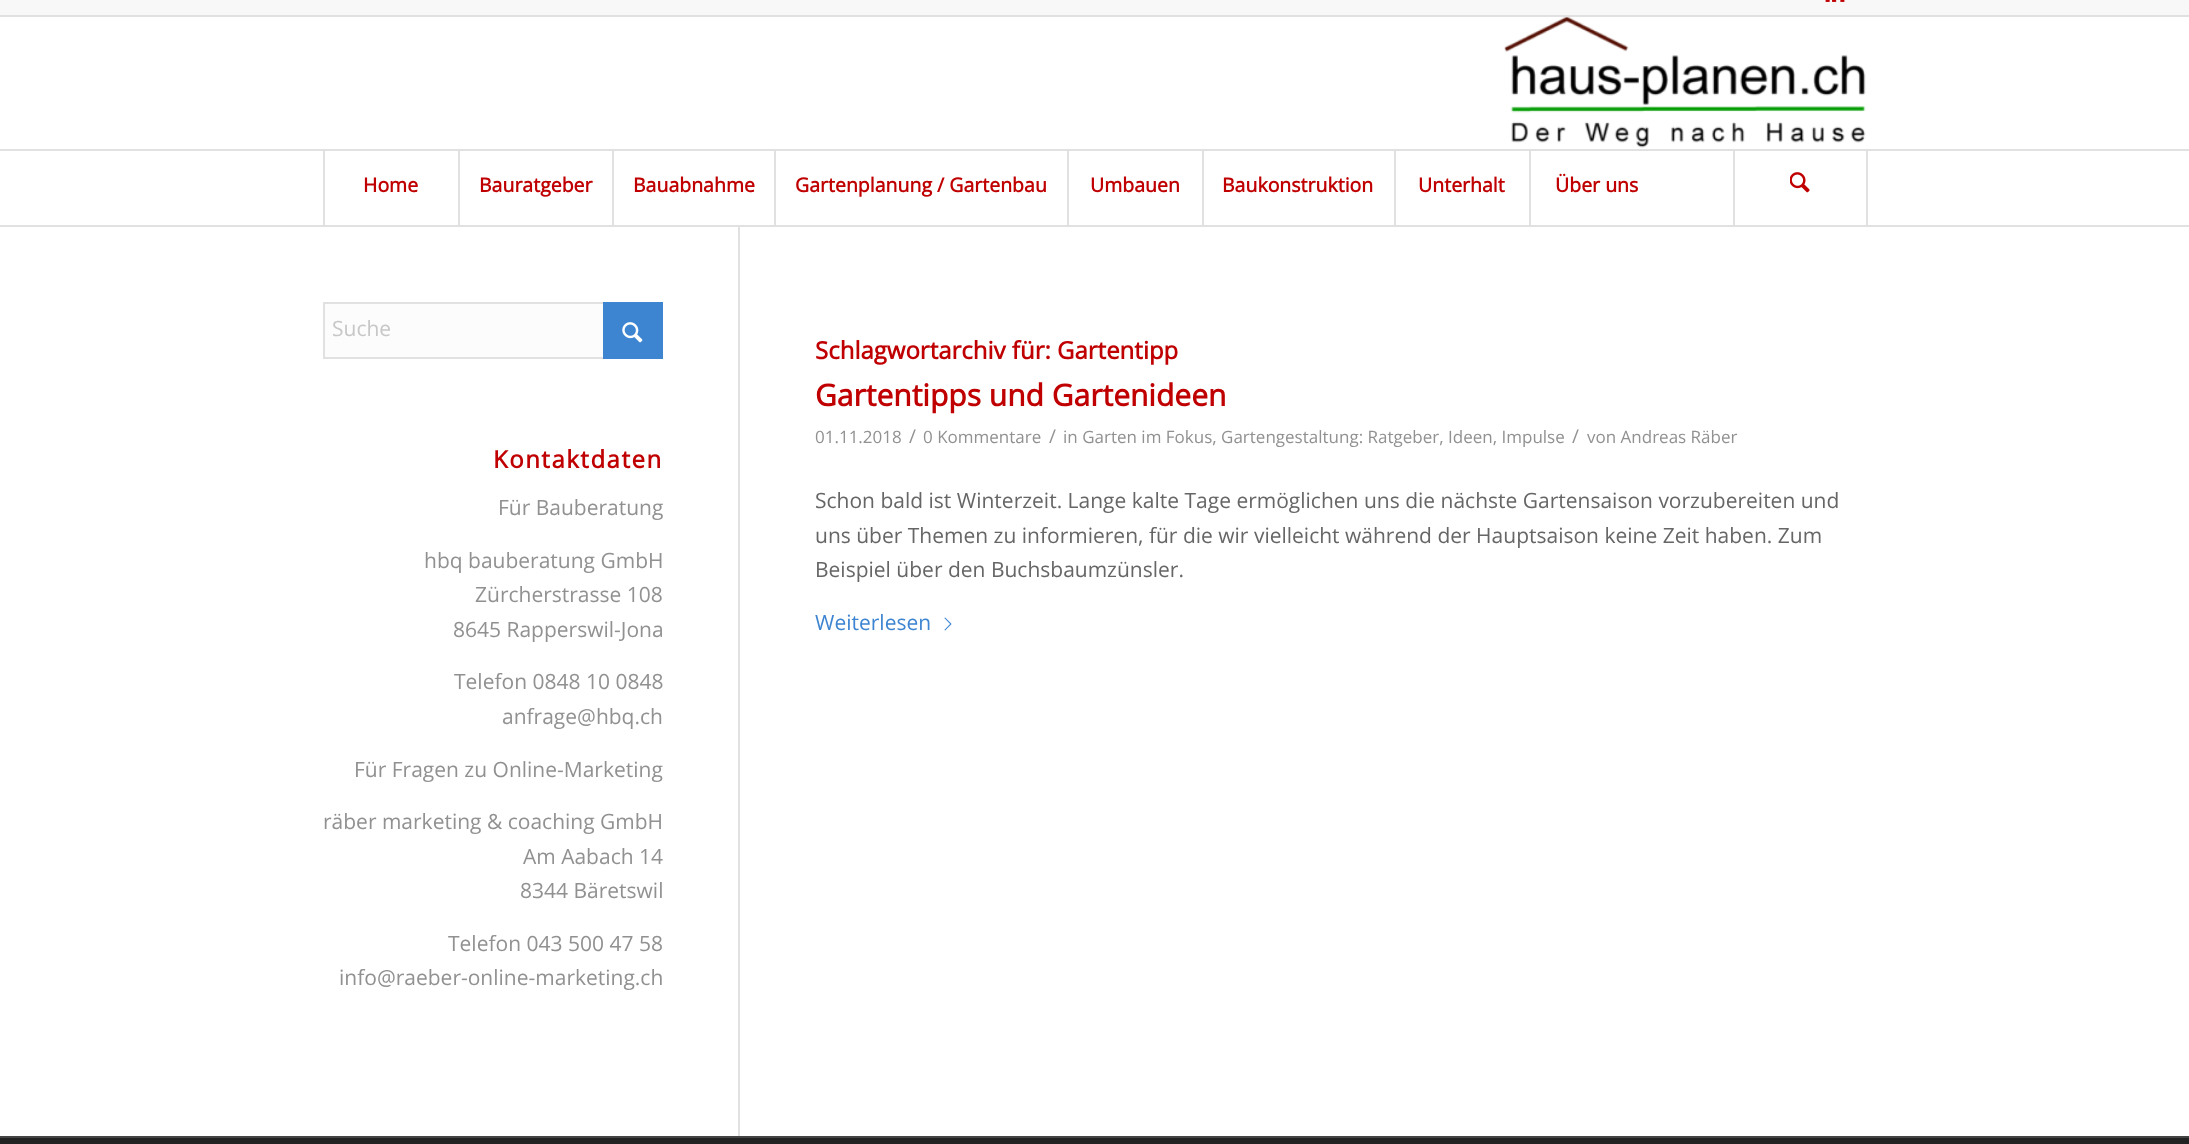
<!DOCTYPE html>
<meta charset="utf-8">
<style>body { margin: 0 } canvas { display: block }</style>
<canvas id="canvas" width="2189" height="1144"></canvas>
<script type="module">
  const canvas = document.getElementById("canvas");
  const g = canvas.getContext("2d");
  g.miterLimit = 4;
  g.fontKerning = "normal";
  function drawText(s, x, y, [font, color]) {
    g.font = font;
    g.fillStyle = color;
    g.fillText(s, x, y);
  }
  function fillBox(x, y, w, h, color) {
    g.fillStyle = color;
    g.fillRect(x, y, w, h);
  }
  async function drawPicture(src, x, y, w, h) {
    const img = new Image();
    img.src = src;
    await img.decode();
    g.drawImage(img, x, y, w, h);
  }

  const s1 = ["bold 19.5px Open Sans", "#C00000"];
  const s2 = ["21px Open Sans", "#C7C7C7"];
  const s3 = ["bold 24px Open Sans", "#C00000"];
  const s4 = ["21px Open Sans", "#919191"];
  const s5 = ["bold 30px Open Sans", "#C00000"];
  const s6 = ["17px Open Sans", "#919191"];
  const s7 = ["19px Open Sans", "#919191"];
  const s8 = ["21px Open Sans", "#666666"];
  const s9 = ["21px Open Sans", "#3E85D1"];

  fillBox(0, 0, 2189, 1144, "#FFFFFF");
  fillBox(0, 0, 2189, 15, "#F8F8F8");
  fillBox(0, 15, 2189, 2, "#E1E1E1");
  await drawPicture("pic1.png", 1825, 0, 20, 2);
  fillBox(0, 225, 2189, 2, "#E1E1E1");
  await drawPicture("pic2.png", 1504, 17, 362, 131);
  fillBox(0, 149, 2189, 2, "#E1E1E1");
  fillBox(323, 150, 2, 75, "#E1E1E1");
  drawText("Home", 363, 192, s1);
  fillBox(458, 150, 2, 75, "#E1E1E1");
  drawText("Bauratgeber", 479, 192, s1);
  fillBox(612, 150, 2, 75, "#E1E1E1");
  drawText("Bauabnahme", 633, 192, s1);
  fillBox(774, 150, 2, 75, "#E1E1E1");
  drawText("Gartenplanung / Gartenbau", 795, 192, s1);
  fillBox(1067, 150, 2, 75, "#E1E1E1");
  drawText("Umbauen", 1090, 192, s1);
  fillBox(1202, 150, 2, 75, "#E1E1E1");
  drawText("Baukonstruktion", 1222, 192, s1);
  fillBox(1394, 150, 2, 75, "#E1E1E1");
  drawText("Unterhalt", 1418, 192, s1);
  fillBox(1529, 150, 2, 75, "#E1E1E1");
  drawText("Über uns", 1555, 192, s1);
  fillBox(1866, 150, 2, 75, "#E1E1E1");
  fillBox(1733, 150, 2, 75, "#E1E1E1");
  await drawPicture("pic3.png", 1790, 172, 20, 21);
  fillBox(738, 227, 2, 909, "#E1E1E1");
  fillBox(325, 304, 278, 53, "#FCFCFC");
  g.strokeStyle = "#E1E1E1";
  g.lineWidth = 2;
  g.strokeRect(324, 303, 338, 55);
  drawText("Suche", 332, 336, s2);
  fillBox(603, 302, 60, 57, "#3E85D1");
  await drawPicture("pic4.png", 622, 322, 21, 21);
  g.letterSpacing = "1.5px";
  drawText("Kontaktdaten", 493, 468, s3);
  g.letterSpacing = "0px";
  drawText("Für Bauberatung", 498, 515, s4);
  drawText("hbq bauberatung GmbH", 424, 568, s4);
  drawText("Zürcherstrasse 108", 475, 602, s4);
  drawText("8645 Rapperswil-Jona", 453, 637, s4);
  drawText("Telefon 0848 10 0848", 454, 689, s4);
  drawText("anfrage@hbq.ch", 502, 724, s4);
  drawText("Für Fragen zu Online-Marketing", 354, 777, s4);
  drawText("räber marketing & coaching GmbH", 323, 829, s4);
  drawText("Am Aabach 14", 523, 864, s4);
  drawText("8344 Bäretswil", 520, 898, s4);
  drawText("Telefon 043 500 47 58", 448, 951, s4);
  drawText("info@raeber-online-marketing.ch", 339, 985, s4);
  drawText("Schlagwortarchiv für: Gartentipp", 815, 359, s3);
  drawText("Gartentipps und Gartenideen", 815, 406, s5);
  drawText("01.11.2018", 815, 443, s6);
  drawText("/", 909, 443, s7);
  drawText("0 Kommentare", 923, 443, s6);
  drawText("/", 1049, 443, s7);
  drawText("in Garten im Fokus, Gartengestaltung: Ratgeber, Ideen, Impulse", 1063, 443, s6);
  drawText("/", 1572, 443, s7);
  drawText("von Andreas Räber", 1587, 443, s6);
  drawText("Schon bald ist Winterzeit. Lange kalte Tage ermöglichen uns die nächste Gartensaison vorzubereiten und", 815, 508, s8);
  drawText("uns über Themen zu informieren, für die wir vielleicht während der Hauptsaison keine Zeit haben. Zum", 815, 543, s8);
  drawText("Beispiel über den Buchsbaumzünsler.", 815, 577, s8);
  drawText("Weiterlesen", 815, 630, s9);
  await drawPicture("pic5.png", 944, 617, 8, 14);
  fillBox(0, 1138, 2189, 6, "#222222");
  fillBox(0, 1136, 2189, 2, "#444444");
</script>
